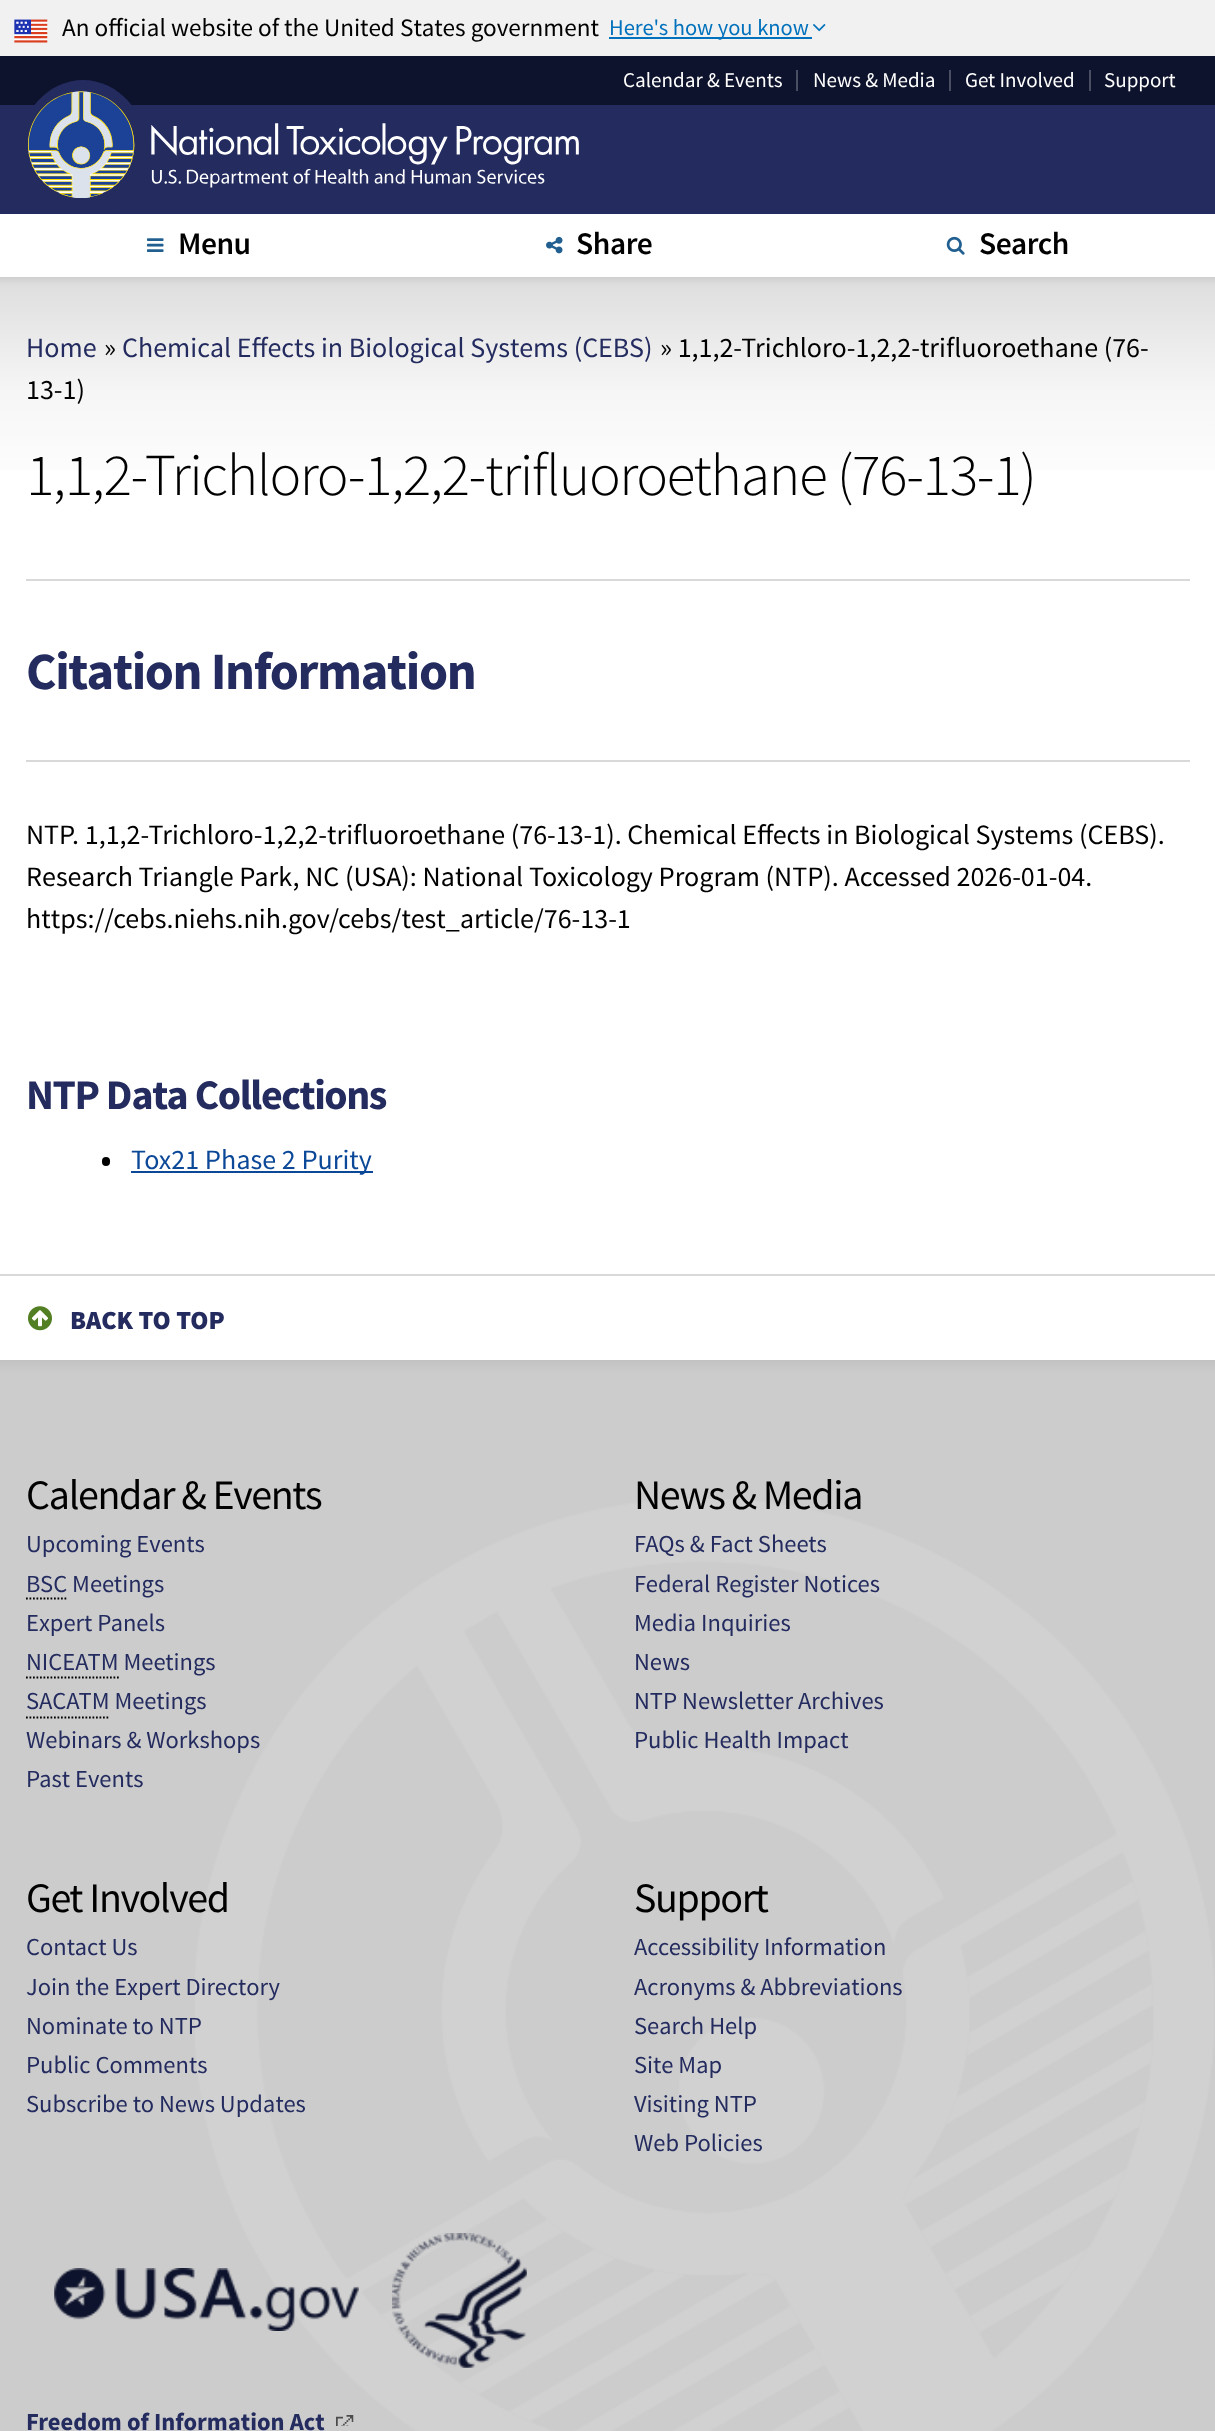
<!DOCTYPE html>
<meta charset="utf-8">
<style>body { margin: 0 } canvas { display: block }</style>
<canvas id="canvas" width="1215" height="2431"></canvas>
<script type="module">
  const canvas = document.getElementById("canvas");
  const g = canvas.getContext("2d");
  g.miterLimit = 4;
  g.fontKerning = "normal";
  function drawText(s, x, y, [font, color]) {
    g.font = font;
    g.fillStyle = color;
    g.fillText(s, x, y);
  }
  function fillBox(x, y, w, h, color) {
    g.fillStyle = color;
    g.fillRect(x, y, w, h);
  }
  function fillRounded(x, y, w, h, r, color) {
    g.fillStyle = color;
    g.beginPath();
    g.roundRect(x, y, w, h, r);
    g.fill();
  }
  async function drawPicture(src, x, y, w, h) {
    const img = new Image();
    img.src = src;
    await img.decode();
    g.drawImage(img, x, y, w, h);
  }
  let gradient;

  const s1 = ["25.2px Source Sans Pro", "#000000"];
  const s2 = ["22.5px Source Sans Pro", "#0071BC"];
  const s3 = ["21px Source Sans Pro", "#FFFFFF"];
  const s4 = ["600 31.5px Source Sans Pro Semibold", "#000000"];
  const s5 = ["28px Source Sans Pro", "#232B5F"];
  const s6 = ["28px Source Sans Pro", "#000000"];
  const s7 = ["300 59.5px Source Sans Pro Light", "#000000"];
  const s8 = ["bold 52.5px Source Sans Pro", "#232B5F"];
  const s9 = ["bold 42px Source Sans Pro", "#232B5F"];
  const s10 = ["28px Source Sans Pro", "#0B4898"];
  const s11 = ["900 26.25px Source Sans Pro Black", "#232B5F"];
  const s12 = ["42px Source Sans Pro", "#000000"];
  const s13 = ["24.5px Source Sans Pro", "#232B5F"];
  const s14 = ["bold 24.5px Source Sans Pro", "#232B5F"];

  fillBox(0, 0, 1215, 2431, "#FFFFFF");
  gradient = g.createLinearGradient(608, 276, 608, 1248);
  gradient.addColorStop(0, "#DDDDDD");
  gradient.addColorStop(0.12, "#F6F6F6");
  gradient.addColorStop(0.23, "#FFFFFF");
  g.fillStyle = gradient;
  g.fillRect(0, 277, 1215, 193);
  g.fillStyle = "rgba(0, 0, 0, 0.08)";
  g.filter = "blur(3.5px)";
  g.beginPath();
  g.rect(-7, -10, 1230, 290);
  g.fill();
  g.filter = "none";
  fillBox(0, 0, 1215, 56, "#F1F1F1");
  await drawPicture("pic1.png", 14, 19, 34, 24);
  drawText("An official website of the United States government", 62, 36, s1);
  fillBox(609, 37, 203, 2, "#0071BC");
  drawText("Here's how you know", 609, 35, s2);
  await drawPicture("pic2.png", 813, 24, 13, 8);
  fillBox(0, 56, 1215, 49, "#0E132D");
  drawText("Calendar & Events", 623, 87, s3);
  fillBox(796, 70, 2, 21, "#4A4E62");
  drawText("News & Media", 813, 87, s3);
  fillBox(949, 70, 2, 21, "#4A4E62");
  drawText("Get Involved", 965, 87, s3);
  fillBox(1089, 70, 2, 21, "#4A4E62");
  drawText("Support", 1104, 87, s3);
  fillBox(0, 105, 1215, 109, "#232B5F");
  g.beginPath();
  g.ellipse(83, 152, 64, 72, 0, 0, Math.PI * 2);
  g.fill();
  await drawPicture("pic3.png", 28, 91, 551, 107);
  fillBox(0, 214, 1215, 63, "#FFFFFF");
  await drawPicture("pic4.png", 147, 238, 17, 14);
  g.letterSpacing = "-0.5px";
  drawText("Menu", 178, 254, s4);
  await drawPicture("pic5.png", 546, 236, 17, 18);
  drawText("Share", 576, 254, s4);
  await drawPicture("pic6.png", 946, 236, 19, 19);
  drawText("Search", 979, 254, s4);
  g.letterSpacing = "0px";
  drawText("Home", 26, 357, s5);
  drawText("»", 104, 357, s6);
  drawText("Chemical Effects in Biological Systems (CEBS)", 122, 357, s5);
  drawText("» 1,1,2-Trichloro-1,2,2-trifluoroethane (76-", 660, 357, s6);
  drawText("13-1)", 26, 399, s6);
  g.letterSpacing = "-1.4px";
  drawText("1,1,2-Trichloro-1,2,2-trifluoroethane (76-13-1)", 26, 495, s7);
  fillBox(26, 579, 1164, 2, "#D9D9D9");
  drawText("Citation Information", 26, 689, s8);
  fillBox(26, 760, 1164, 2, "#D9D9D9");
  g.letterSpacing = "0px";
  drawText("NTP. 1,1,2-Trichloro-1,2,2-trifluoroethane (76-13-1). Chemical Effects in Biological Systems (CEBS).", 26, 844, s6);
  drawText("Research Triangle Park, NC (USA): National Toxicology Program (NTP). Accessed 2026-01-04.", 26, 886, s6);
  drawText("https://cebs.niehs.nih.gov/cebs/test_article/76-13-1", 26, 928, s6);
  g.letterSpacing = "-1.4px";
  drawText("NTP Data Collections", 26, 1109, s9);
  fillRounded(102, 1157, 8, 9, 4, "#000000");
  fillBox(131, 1171, 242, 2, "#0B4898");
  g.letterSpacing = "0px";
  drawText("Tox21 Phase 2 Purity", 131, 1169, s10);
  fillBox(0, 1274, 1215, 2, "#D9D9D9");
  await drawPicture("pic7.png", 28, 1306, 24, 25);
  drawText("BACK TO TOP", 70, 1329, s11);
  gradient = g.createLinearGradient(608, 1360, 608, 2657);
  gradient.addColorStop(0, "#C2C2C2");
  gradient.addColorStop(0.01, "#CCCCCC");
  gradient.addColorStop(0.02, "#CCCCCC");
  g.fillStyle = gradient;
  g.fillRect(0, 1360, 1215, 1071);
  await drawPicture("pic8.png", 195, 1499, 1019, 932);
  g.letterSpacing = "-1.4px";
  drawText("Calendar & Events", 26, 1509, s12);
  g.letterSpacing = "0px";
  drawText("Upcoming Events", 26, 1552, s13);
  g.beginPath();
  g.moveTo(26, 1598.5);
  g.lineTo(68, 1598.5);
  g.strokeStyle = "#000000";
  g.lineWidth = 1.8;
  g.setLineDash([1.75, 1.75]);
  g.stroke();
  drawText("BSC Meetings", 26, 1592, s13);
  drawText("Expert Panels", 26, 1631, s13);
  drawText("NICEATM Meetings", 26, 1670, s13);
  g.beginPath();
  g.moveTo(26, 1677.5);
  g.lineTo(119, 1677.5);
  g.stroke();
  drawText("SACATM Meetings", 26, 1709, s13);
  g.beginPath();
  g.moveTo(26, 1717.5);
  g.lineTo(110, 1717.5);
  g.stroke();
  drawText("Webinars & Workshops", 26, 1748, s13);
  drawText("Past Events", 26, 1787, s13);
  g.letterSpacing = "-1.4px";
  drawText("News & Media", 634, 1509, s12);
  g.letterSpacing = "0px";
  drawText("FAQs & Fact Sheets", 634, 1552, s13);
  drawText("Federal Register Notices", 634, 1592, s13);
  drawText("Media Inquiries", 634, 1631, s13);
  drawText("News", 634, 1670, s13);
  drawText("NTP Newsletter Archives", 634, 1709, s13);
  drawText("Public Health Impact", 634, 1748, s13);
  g.letterSpacing = "-1.4px";
  drawText("Get Involved", 26, 1912, s12);
  g.letterSpacing = "0px";
  drawText("Contact Us", 26, 1955, s13);
  drawText("Join the Expert Directory", 26, 1995, s13);
  drawText("Nominate to NTP", 26, 2034, s13);
  drawText("Public Comments", 26, 2073, s13);
  drawText("Subscribe to News Updates", 26, 2112, s13);
  g.letterSpacing = "-1.4px";
  drawText("Support", 634, 1912, s12);
  g.letterSpacing = "0px";
  drawText("Accessibility Information", 634, 1955, s13);
  drawText("Acronyms & Abbreviations", 634, 1995, s13);
  drawText("Search Help", 634, 2034, s13);
  drawText("Site Map", 634, 2073, s13);
  drawText("Visiting NTP", 634, 2112, s13);
  drawText("Web Policies", 634, 2151, s13);
  await drawPicture("pic9.png", 54, 2268, 305, 63);
  await drawPicture("pic10.png", 392, 2233, 135, 135);
  drawText("Freedom of Information Act", 26, 2430, s14);
  await drawPicture("pic11.png", 336, 2415, 18, 11);
</script>
